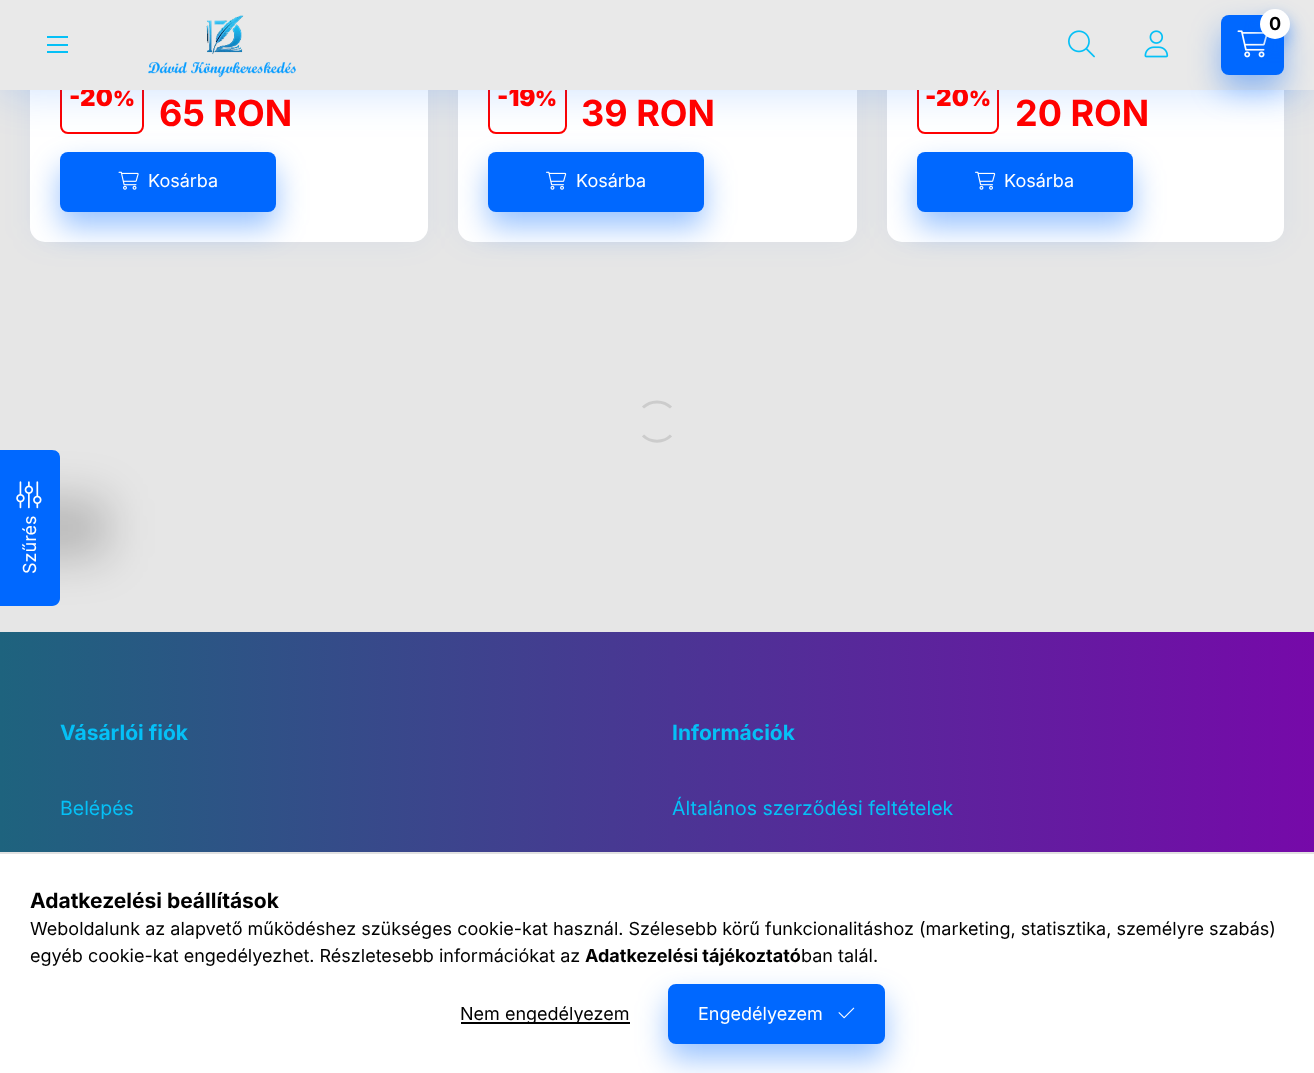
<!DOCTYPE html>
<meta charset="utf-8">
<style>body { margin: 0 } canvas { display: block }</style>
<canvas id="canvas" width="1314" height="1073"></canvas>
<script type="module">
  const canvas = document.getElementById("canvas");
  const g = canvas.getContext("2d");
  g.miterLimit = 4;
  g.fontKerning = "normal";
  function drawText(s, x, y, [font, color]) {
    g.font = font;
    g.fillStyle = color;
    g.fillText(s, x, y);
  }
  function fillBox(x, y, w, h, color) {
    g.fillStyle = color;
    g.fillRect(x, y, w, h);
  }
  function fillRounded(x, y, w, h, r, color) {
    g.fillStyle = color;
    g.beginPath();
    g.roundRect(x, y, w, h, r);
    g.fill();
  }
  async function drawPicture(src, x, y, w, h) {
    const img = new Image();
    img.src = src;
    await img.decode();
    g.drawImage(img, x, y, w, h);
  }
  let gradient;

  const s1 = ["900 24px Inter", "#FF0000"];
  const s2 = ["bold 18px Inter", "#000000"];
  const s3 = ["900 21px Inter", "#FF0000"];
  const s4 = ["bold 36px Inter", "#FF0000"];
  const s5 = ["18px Inter", "#FFFFFF"];
  const s6 = ["bold 21px Inter", "#05C0F6"];
  const s7 = ["19.5px Inter", "#05C0F6"];
  const s8 = ["bold 21px Inter", "#000000"];
  const s9 = ["18px Inter", "#000000"];

  fillBox(0, 0, 1314, 1073, "#E6E6E6");
  g.fillStyle = "rgba(0, 104, 255, 0.05)";
  g.filter = "blur(15px)";
  g.beginPath();
  g.roundRect(30, -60, 398, 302, 15);
  g.fill();
  g.filter = "none";
  fillRounded(30, -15, 398, 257, 15, "#FFFFFF");
  g.fillStyle = "rgba(0, 104, 255, 0.4)";
  g.filter = "blur(15px)";
  g.beginPath();
  g.roundRect(60, 167, 216, 60, 8);
  g.fill();
  g.filter = "none";
  g.beginPath();
  g.roundRect(61, 63, 82, 70, 7);
  g.strokeStyle = "#FF0000";
  g.lineWidth = 2;
  g.stroke();
  fillRounded(60, 152, 216, 60, 8, "#0068FF");
  g.fillStyle = "rgba(0, 104, 255, 0.05)";
  g.filter = "blur(15px)";
  g.beginPath();
  g.roundRect(458, -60, 399, 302, 15);
  g.fill();
  g.filter = "none";
  fillRounded(458, -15, 399, 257, 15, "#FFFFFF");
  g.fillStyle = "rgba(0, 104, 255, 0.4)";
  g.filter = "blur(15px)";
  g.beginPath();
  g.roundRect(488, 167, 216, 60, 8);
  g.fill();
  g.filter = "none";
  g.beginPath();
  g.roundRect(489, 63, 77, 70, 7);
  g.stroke();
  fillRounded(488, 152, 216, 60, 8, "#0068FF");
  g.fillStyle = "rgba(0, 104, 255, 0.05)";
  g.filter = "blur(15px)";
  g.beginPath();
  g.roundRect(887, -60, 397, 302, 15);
  g.fill();
  g.filter = "none";
  fillRounded(887, -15, 397, 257, 15, "#FFFFFF");
  g.fillStyle = "rgba(0, 104, 255, 0.4)";
  g.filter = "blur(15px)";
  g.beginPath();
  g.roundRect(917, 167, 216, 60, 8);
  g.fill();
  g.filter = "none";
  g.beginPath();
  g.roundRect(918, 63, 80, 70, 7);
  g.stroke();
  fillRounded(917, 152, 216, 60, 8, "#0068FF");
  g.fillStyle = "rgba(0, 104, 255, 0.2)";
  g.filter = "blur(22.5px)";
  g.beginPath();
  g.rect(0, 0, 1314, 90);
  g.fill();
  g.filter = "none";
  drawText("-20", 69, 106, s1);
  drawText("-19", 497, 106, s1);
  drawText("-20", 925, 106, s1);
  fillBox(0, 0, 1314, 90, "#E9E9E9");
  fillBox(47, 36, 21, 2, "#05C0F6");
  fillBox(47, 44, 21, 2, "#05C0F6");
  fillBox(47, 51, 21, 2, "#05C0F6");
  await drawPicture("pic1.png", 148, 15, 148, 63);
  g.fillStyle = "rgba(0, 104, 255, 0.4)";
  g.filter = "blur(15px)";
  g.beginPath();
  g.roundRect(1221, 30, 63, 60, 8);
  g.fill();
  g.filter = "none";
  fillRounded(1221, 15, 63, 60, 8, "#0068FF");
  await drawPicture("pic2.png", 1237, 30, 31, 28);
  g.fillStyle = "rgba(0, 104, 255, 0.4)";
  g.filter = "blur(7.5px)";
  g.beginPath();
  g.roundRect(1260, 17, 30, 30, 15);
  g.fill();
  g.filter = "none";
  g.fillStyle = "#FFFFFF";
  g.beginPath();
  g.arc(1275, 24, 15, 0, Math.PI * 2);
  g.fill();
  drawText("0", 1269, 30, s2);
  await drawPicture("pic3.png", 1068, 30, 27, 28);
  await drawPicture("pic4.png", 1144, 30, 25, 28);
  drawText("%", 113, 106, s3);
  drawText("65 RON", 159, 126, s4);
  await drawPicture("pic5.png", 118, 171, 21, 19);
  drawText("Kosárba", 148, 187, s5);
  drawText("%", 535, 106, s3);
  drawText("39 RON", 581, 126, s4);
  await drawPicture("pic6.png", 546, 171, 21, 19);
  drawText("Kosárba", 576, 187, s5);
  drawText("%", 969, 106, s3);
  drawText("20 RON", 1015, 126, s4);
  await drawPicture("pic6.png", 975, 171, 21, 19);
  drawText("Kosárba", 1004, 187, s5);
  g.beginPath();
  g.moveTo(643, 407.5);
  g.bezierCurveTo(650.5, 400, 663.5, 400, 671, 407.5);
  g.moveTo(671, 435.5);
  g.bezierCurveTo(663.5, 443, 650.5, 443, 643, 435.5);
  g.strokeStyle = "#CCCCCC";
  g.lineWidth = 3;
  g.stroke();
  g.fillStyle = "rgba(0, 0, 0, 0.2)";
  g.filter = "blur(22.5px)";
  g.beginPath();
  g.roundRect(-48, 498, 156, 60, 8);
  g.fill();
  g.filter = "none";
  g.fillStyle = "#0068FF";
  g.beginPath();
  g.moveTo(0, 606);
  g.lineTo(0, 450);
  g.lineTo(52, 450);
  g.bezierCurveTo(57, 450, 60, 453, 60, 458);
  g.lineTo(60, 598);
  g.bezierCurveTo(60, 602, 57, 606, 52, 606);
  g.closePath();
  g.fill();
  await drawPicture("pic7.png", 16, 481, 26, 28);
  g.fillStyle = "#FFFFFF";
  g.save();
  g.translate(36, 574);
  g.rotate(-90 * Math.PI / 180);
  g.fillText("Szűrés", 0, 0);
  g.restore();
  gradient = g.createLinearGradient(0, 537, 1314, 537);
  gradient.addColorStop(0, "#1E637E");
  gradient.addColorStop(1, "#7609A9");
  g.fillStyle = gradient;
  g.fillRect(0, 632, 1314, 220);
  drawText("Vásárlói fiók", 60, 740, s6);
  drawText("Belépés", 60, 815, s7);
  drawText("Információk", 672, 740, s6);
  drawText("Általános szerződési feltételek", 672, 815, s7);
  fillBox(0, 854, 1314, 219, "#FFFFFF");
  fillBox(0, 852, 1314, 2, "#E1E1E1");
  drawText("Adatkezelési beállítások", 30, 908, s8);
  drawText("Weboldalunk az alapvető működéshez szükséges cookie-kat használ. Szélesebb körű funkcionalitáshoz (marketing, statisztika, személyre szabás)", 30, 935, s9);
  drawText("egyéb cookie-kat engedélyezhet. Részletesebb információkat az", 30, 962, s9);
  drawText("Adatkezelési tájékoztató", 585, 962, s2);
  drawText("ban talál.", 801, 962, s9);
  fillBox(461, 1022, 169, 2, "#000000");
  drawText("Nem engedélyezem", 460, 1020, s9);
  g.fillStyle = "rgba(0, 104, 255, 0.4)";
  g.filter = "blur(15px)";
  g.beginPath();
  g.roundRect(668, 999, 217, 60, 8);
  g.fill();
  g.filter = "none";
  g.fillStyle = "#0068FF";
  g.beginPath();
  g.roundRect(669, 985, 215, 58, 7);
  g.fill();
  g.strokeStyle = "#0068FF";
  g.lineWidth = 2;
  g.stroke();
  drawText("Engedélyezem", 698, 1020, s5);
  await drawPicture("pic8.png", 838, 1007, 17, 12);
</script>
